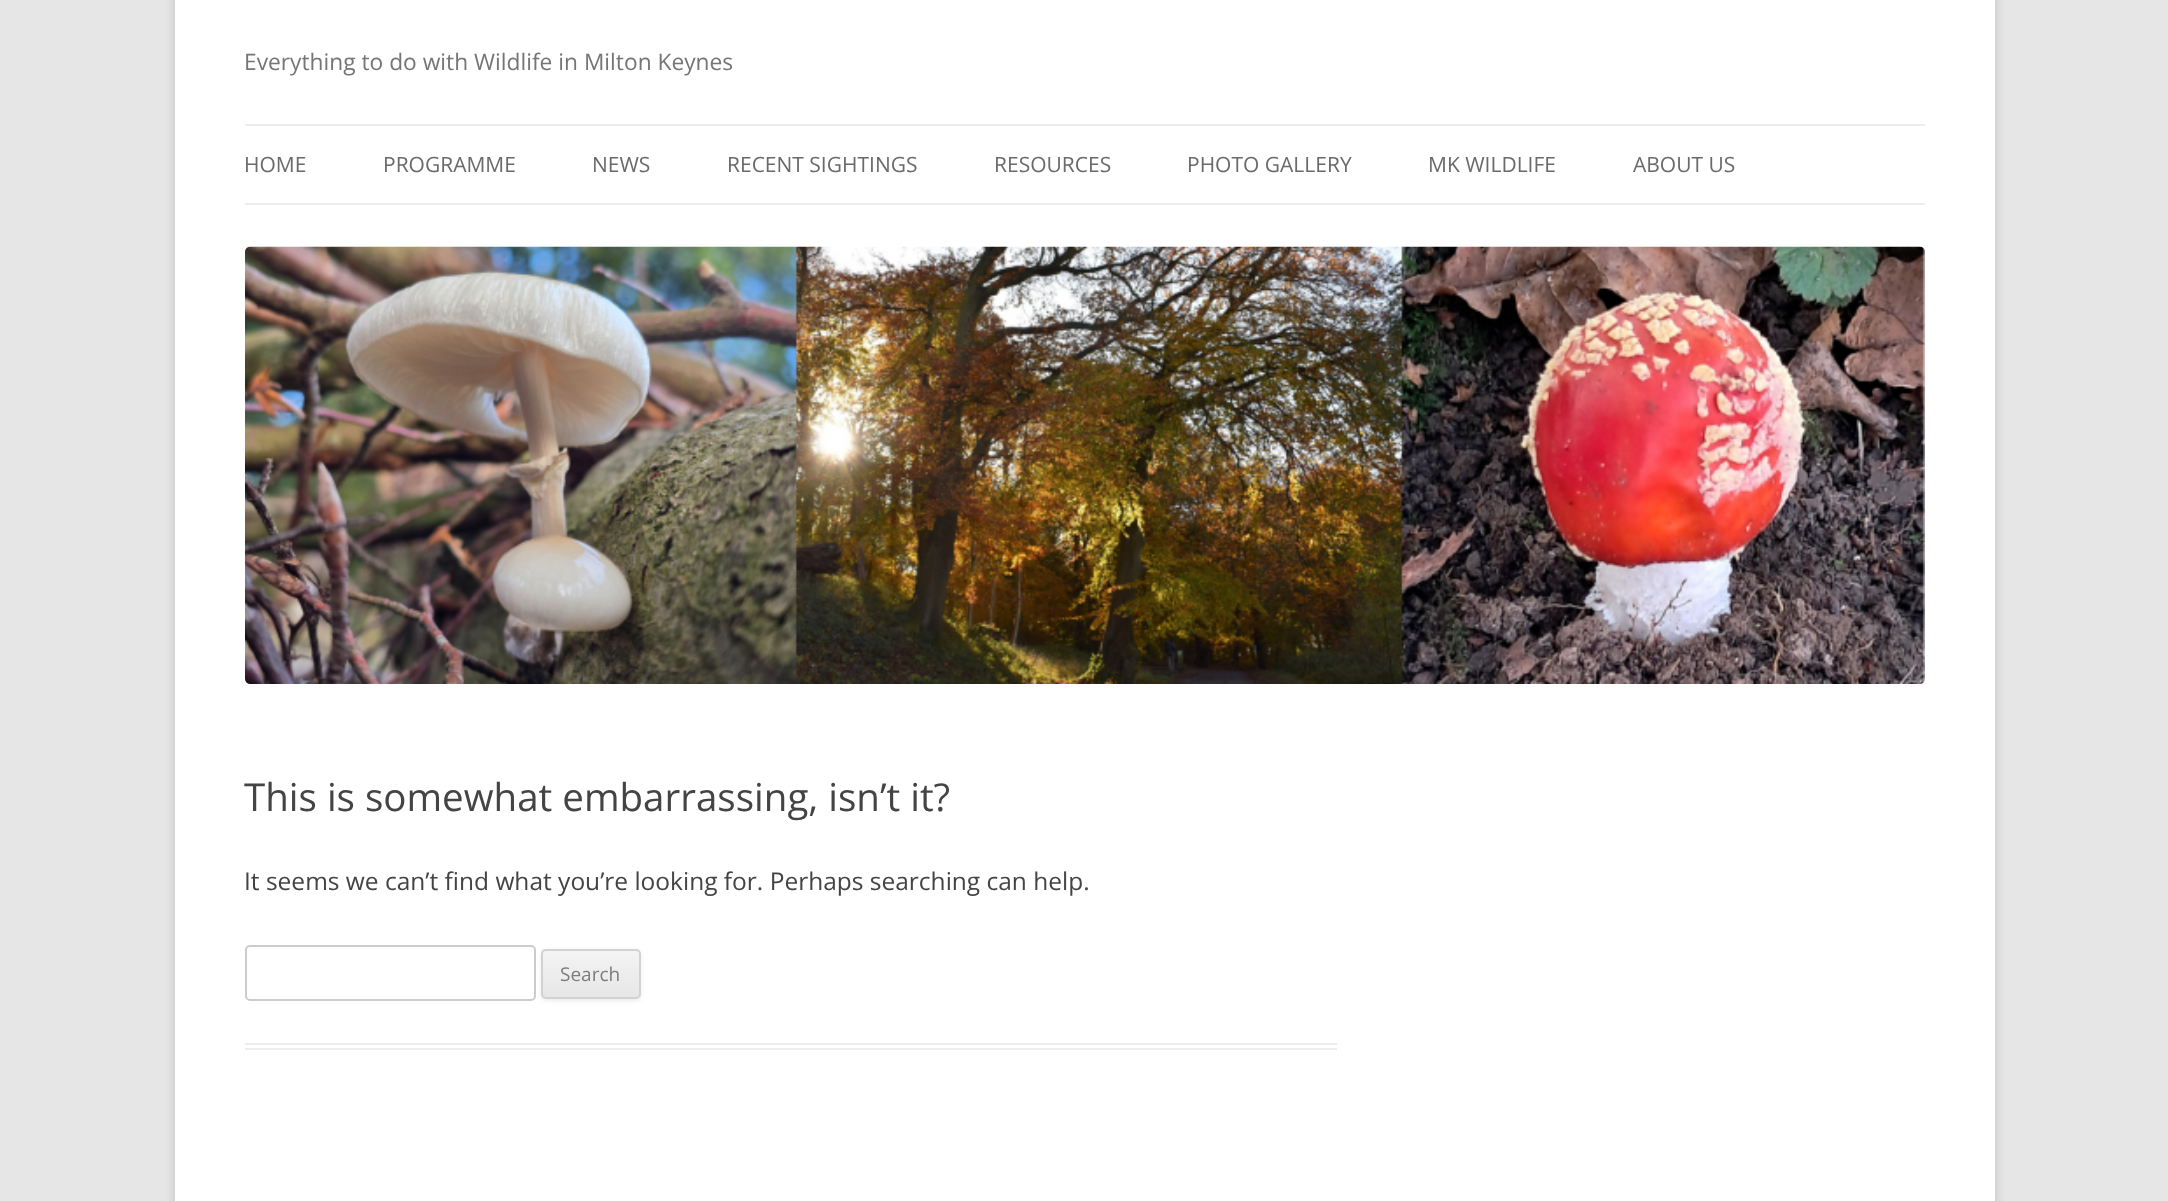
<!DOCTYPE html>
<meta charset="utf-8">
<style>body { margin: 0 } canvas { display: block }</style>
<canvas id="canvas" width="2168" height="1201"></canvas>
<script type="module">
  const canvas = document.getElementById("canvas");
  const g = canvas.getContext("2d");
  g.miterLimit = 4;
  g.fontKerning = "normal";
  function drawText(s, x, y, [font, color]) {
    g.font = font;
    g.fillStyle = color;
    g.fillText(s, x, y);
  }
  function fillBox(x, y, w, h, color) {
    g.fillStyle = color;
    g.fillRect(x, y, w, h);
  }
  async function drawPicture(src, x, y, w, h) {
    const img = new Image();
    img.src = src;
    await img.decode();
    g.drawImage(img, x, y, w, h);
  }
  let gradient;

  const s1 = ["22.75px Open Sans", "#757575"];
  const s2 = ["21px Open Sans", "#6A6A6A"];
  const s3 = ["38.5px Open Sans", "#444444"];
  const s4 = ["24.5px Open Sans", "#444444"];
  const s5 = ["19px Open Sans", "#7C7C7C"];

  fillBox(0, 0, 2168, 1201, "#E6E6E6");
  g.fillStyle = "rgba(100, 100, 100, 0.3)";
  g.filter = "blur(5px)";
  g.beginPath();
  g.rect(175, -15, 1820, 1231);
  g.fill();
  g.filter = "none";
  fillBox(175, 0, 1820, 1201, "#FFFFFF");
  drawText("Everything to do with Wildlife in Milton Keynes", 244, 70, s1);
  fillBox(245, 124, 1680, 2, "#EDEDED");
  fillBox(245, 203, 1680, 2, "#EDEDED");
  drawText("HOME", 244, 172, s2);
  drawText("PROGRAMME", 383, 172, s2);
  drawText("NEWS", 592, 172, s2);
  drawText("RECENT SIGHTINGS", 727, 172, s2);
  drawText("RESOURCES", 994, 172, s2);
  drawText("PHOTO GALLERY", 1187, 172, s2);
  drawText("MK WILDLIFE", 1428, 172, s2);
  drawText("ABOUT US", 1633, 172, s2);
  await drawPicture("pic1.png", 245, 246, 1680, 438);
  fillBox(245, 1043, 1092, 2, "#EDEDED");
  fillBox(245, 1048, 1092, 2, "#EDEDED");
  drawText("This is somewhat embarrassing, isn’t it?", 244, 811, s3);
  drawText("It seems we can’t find what you’re looking for. Perhaps searching can help.", 244, 890, s4);
  g.beginPath();
  g.roundRect(246, 946, 289, 54, 4);
  g.strokeStyle = "#CCCCCC";
  g.lineWidth = 2;
  g.stroke();
  g.fillStyle = "rgba(64, 64, 64, 0.1)";
  g.filter = "blur(2px)";
  g.beginPath();
  g.roundRect(541, 950, 100, 51, 5);
  g.fill();
  g.filter = "none";
  g.save();
  g.beginPath();
  g.roundRect(541, 949, 100, 50, 5);
  g.clip();
  gradient = g.createLinearGradient(591, 950, 591, 998);
  gradient.addColorStop(0, "#F4F4F4");
  gradient.addColorStop(1, "#E6E6E6");
  g.fillStyle = gradient;
  g.fillRect(541, 950, 100, 48);
  g.restore();
  g.beginPath();
  g.roundRect(542, 950, 98, 48, 4);
  g.strokeStyle = "#D2D2D2";
  g.stroke();
  drawText("Search", 560, 981, s5);
</script>
